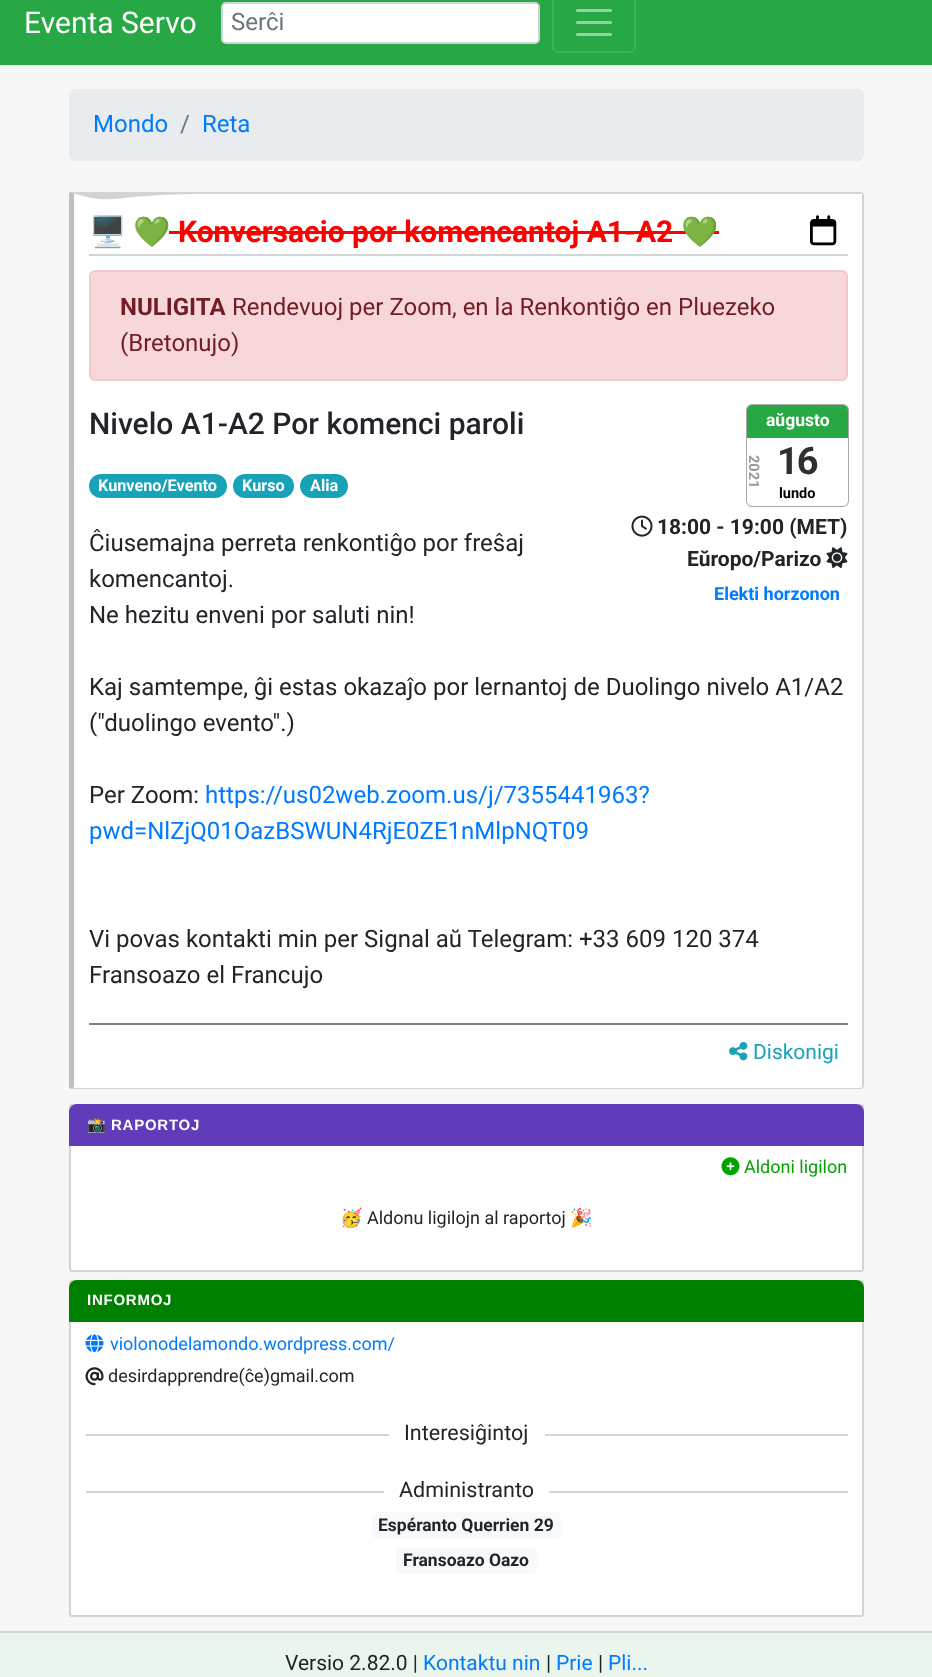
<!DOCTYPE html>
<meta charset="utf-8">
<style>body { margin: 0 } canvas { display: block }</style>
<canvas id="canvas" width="932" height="1677"></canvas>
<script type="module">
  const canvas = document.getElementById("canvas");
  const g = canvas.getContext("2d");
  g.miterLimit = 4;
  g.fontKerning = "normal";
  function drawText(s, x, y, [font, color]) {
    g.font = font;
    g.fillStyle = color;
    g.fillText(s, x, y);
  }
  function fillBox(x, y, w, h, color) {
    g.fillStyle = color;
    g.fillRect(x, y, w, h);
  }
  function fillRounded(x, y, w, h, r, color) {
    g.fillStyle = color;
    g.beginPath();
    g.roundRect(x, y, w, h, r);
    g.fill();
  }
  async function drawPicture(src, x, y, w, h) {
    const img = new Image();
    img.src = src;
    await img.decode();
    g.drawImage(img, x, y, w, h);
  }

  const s1 = ["30px Roboto", "#FFFFFF"];
  const s2 = ["24px Roboto", "#6C757D"];
  const s3 = ["24px Roboto", "#007BFF"];
  const s4 = ["bold 30px Noto Color Emoji", "#212529"];
  const s5 = ["bold 30px Noto Color Emoji", "#FF0000"];
  const s6 = ["bold 30px Roboto", "#FF0000"];
  const s7 = ["bold 24px Roboto", "#721C24"];
  const s8 = ["24px Roboto", "#721C24"];
  const s9 = ["500 30px Roboto", "#212529"];
  const s10 = ["bold 17.5px Roboto", "#FFFFFF"];
  const s11 = ["bold 38px Roboto", "#2F2F2F"];
  const s12 = ["bold 14.5px Roboto", "#000000"];
  const s13 = ["bold 21px Roboto", "#212529"];
  const s14 = ["bold 18px Roboto", "#007BFF"];
  const s15 = ["bold 16.25px Roboto", "#FFFFFF"];
  const s16 = ["24px Roboto", "#212529"];
  const s17 = ["21px Roboto", "#17A2B8"];
  const s18 = ["bold 15px Noto Color Emoji", "#FFFFFF"];
  const s19 = ["bold 15px Liberation Sans", "#FFFFFF"];
  const s20 = ["18px Roboto", "#00A300"];
  const s21 = ["18px Noto Color Emoji", "#212529"];
  const s22 = ["18px Roboto", "#212529"];
  const s23 = ["18px Roboto", "#007BFF"];
  const s24 = ["21.5px Roboto", "#212529"];
  const s25 = ["bold 17.5px Roboto", "#212529"];
  const s26 = ["21px Roboto", "#212529"];
  const s27 = ["21px Roboto", "#007BFF"];

  fillBox(0, 0, 932, 1677, "#F7F7F7");
  fillBox(0, 0, 932, 65, "#28A745");
  drawText("Eventa Servo", 24, 33, s1);
  g.beginPath();
  g.roundRect(222, 3, 317, 40, 4);
  g.fill();
  g.strokeStyle = "#CED4DA";
  g.lineWidth = 2;
  g.stroke();
  drawText("Serĉi", 231, 30, s2);
  g.beginPath();
  g.roundRect(553, -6, 82, 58, 5);
  g.strokeStyle = "#3EB058";
  g.stroke();
  g.beginPath();
  g.moveTo(577.5, 10.5);
  g.lineTo(610.5, 10.5);
  g.moveTo(577.5, 22.5);
  g.lineTo(610.5, 22.5);
  g.moveTo(577.5, 34.5);
  g.lineTo(610.5, 34.5);
  g.strokeStyle = "#94D3A2";
  g.lineWidth = 3;
  g.lineCap = "round";
  g.stroke();
  fillRounded(69, 89, 795, 72, 6, "#E9ECEF");
  drawText("Mondo", 93, 132, s3);
  drawText("/", 180, 132, s2);
  drawText("Reta", 202, 132, s3);
  g.fillStyle = "#FFFFFF";
  g.beginPath();
  g.moveTo(74, 194);
  g.lineTo(861, 194);
  g.bezierCurveTo(862, 194, 862, 194, 862, 195);
  g.lineTo(862, 1086);
  g.bezierCurveTo(862, 1087, 862, 1088, 861, 1088);
  g.lineTo(74, 1088);
  g.closePath();
  g.fill();
  g.fillStyle = "#D3D3D3";
  g.beginPath();
  g.moveTo(72, 192);
  g.lineTo(70, 192);
  g.bezierCurveTo(115, 207, 106, 194, 206, 194);
  g.lineTo(862, 194);
  g.lineTo(863, 193);
  g.lineTo(861, 192);
  g.closePath();
  g.fill();
  g.beginPath();
  g.moveTo(864, 1086);
  g.lineTo(864, 195);
  g.lineTo(863, 193);
  g.lineTo(862, 194);
  g.lineTo(862, 1087);
  g.lineTo(863, 1088);
  g.closePath();
  g.fill();
  g.beginPath();
  g.moveTo(72, 1089);
  g.lineTo(861, 1089);
  g.lineTo(863, 1088);
  g.lineTo(862, 1087);
  g.lineTo(861, 1088);
  g.lineTo(74, 1088);
  g.lineTo(74, 1087);
  g.lineTo(70, 1089);
  g.closePath();
  g.fill();
  g.fillStyle = "#C0C0C0";
  g.beginPath();
  g.moveTo(74, 194);
  g.lineTo(75, 194);
  g.lineTo(70, 192);
  g.bezierCurveTo(69, 193, 69, 194, 69, 195);
  g.lineTo(69, 1086);
  g.bezierCurveTo(69, 1087, 69, 1088, 70, 1089);
  g.lineTo(74, 1087);
  g.closePath();
  g.fill();
  fillBox(89, 254, 759, 2, "#D3D3D3");
  drawText("🖥", 89, 242, s4);
  drawText("💚", 133, 242, s5);
  fillBox(169, 231, 550, 3, "#FF0000");
  drawText("Konversacio por komencantoj A1-A2", 178, 242, s6);
  drawText("💚", 681, 242, s5);
  await drawPicture("pic1.png", 810, 215, 27, 31);
  g.fillStyle = "#F8D7DA";
  g.beginPath();
  g.roundRect(90, 271, 757, 109, 5);
  g.fill();
  g.strokeStyle = "#F5C6CB";
  g.lineWidth = 2;
  g.stroke();
  drawText("NULIGITA", 120, 315, s7);
  drawText("Rendevuoj per Zoom, en la Renkontiĝo en Pluezeko", 232, 315, s8);
  drawText("(Bretonujo)", 120, 351, s8);
  drawText("Nivelo A1-A2 Por komenci paroli", 89, 434, s9);
  g.beginPath();
  g.roundRect(747, 405, 101, 101, 5);
  g.strokeStyle = "#A9A9A9";
  g.stroke();
  fillRounded(747, 405, 101, 101, 5, "#FFFFFF");
  g.fillStyle = "#28A745";
  g.beginPath();
  g.roundRect(747, 405, 101, 33, [5, 5, 0, 0]);
  g.fill();
  drawText("aŭgusto", 766, 426, s10);
  g.font = "bold 14.5px Roboto";
  g.fillStyle = "#999999";
  g.save();
  g.translate(749, 455);
  g.rotate(90 * Math.PI / 180);
  g.fillText("2021", 0, 0);
  g.restore();
  g.letterSpacing = "-2px";
  drawText("16", 777, 474, s11);
  g.letterSpacing = "0px";
  drawText("lundo", 779, 498, s12);
  await drawPicture("pic2.png", 631, 515, 22, 22);
  drawText("18:00 - 19:00 (MET)", 657, 534, s13);
  drawText("Eŭropo/Parizo", 687, 566, s13);
  await drawPicture("pic3.png", 826, 547, 22, 22);
  drawText("Elekti horzonon", 714, 600, s14);
  fillRounded(89, 474, 138, 24, 12, "#17A2B8");
  drawText("Kunveno/Evento", 98, 491, s15);
  fillRounded(233, 474, 61, 24, 12, "#17A2B8");
  drawText("Kurso", 242, 491, s15);
  fillRounded(300, 474, 48, 24, 12, "#17A2B8");
  drawText("Alia", 310, 491, s15);
  drawText("Ĉiusemajna perreta renkontiĝo por freŝaj", 89, 551, s16);
  drawText("komencantoj.", 89, 587, s16);
  drawText("Ne hezitu enveni por saluti nin!", 89, 623, s16);
  drawText("Kaj samtempe, ĝi estas okazaĵo por lernantoj de Duolingo nivelo A1/A2", 89, 695, s16);
  drawText("(\"duolingo evento\".)", 89, 731, s16);
  drawText("Per Zoom:", 89, 803, s16);
  drawText("https://us02web.zoom.us/j/7355441963?", 205, 803, s3);
  drawText("pwd=NlZjQ01OazBSWUN4RjE0ZE1nMlpNQT09", 89, 839, s3);
  drawText("Vi povas kontakti min per Signal aŭ Telegram: +33 609 120 374", 89, 947, s16);
  drawText("Fransoazo el Francujo", 89, 983, s16);
  fillBox(89, 1023, 759, 2, "#808080");
  await drawPicture("pic4.png", 729, 1042, 19, 19);
  drawText("Diskonigi", 753, 1059, s17);
  g.fillStyle = "#FFFFFF";
  g.beginPath();
  g.roundRect(70, 1105, 793, 166, 2);
  g.fill();
  g.strokeStyle = "#D3D3D3";
  g.stroke();
  g.fillStyle = "#603CBA";
  g.beginPath();
  g.roundRect(69, 1104, 795, 42, [8, 8, 0, 0]);
  g.fill();
  g.letterSpacing = "0.75px";
  drawText("📸", 87, 1130, s18);
  drawText("RAPORTOJ", 111, 1130, s19);
  await drawPicture("pic5.png", 721, 1157, 19, 19);
  g.letterSpacing = "0px";
  drawText("Aldoni ligilon", 744, 1173, s20);
  drawText("🥳", 340, 1224, s21);
  drawText("Aldonu ligilojn al raportoj", 367, 1224, s22);
  drawText("🎉", 570, 1224, s21);
  g.fillStyle = "#FFFFFF";
  g.beginPath();
  g.roundRect(70, 1281, 793, 335, 2);
  g.fill();
  g.stroke();
  g.fillStyle = "#008000";
  g.beginPath();
  g.roundRect(69, 1280, 795, 42, [8, 8, 0, 0]);
  g.fill();
  g.letterSpacing = "0.75px";
  drawText("INFORMOJ", 87, 1305, s19);
  await drawPicture("pic6.png", 85, 1334, 19, 19);
  g.letterSpacing = "0px";
  drawText("violonodelamondo.wordpress.com/", 110, 1350, s23);
  await drawPicture("pic7.png", 85, 1367, 19, 19);
  drawText("desirdapprendre(ĉe)gmail.com", 108, 1382, s22);
  fillBox(86, 1434, 303, 2, "#D3D3D3");
  drawText("Interesiĝintoj", 404, 1440, s24);
  fillBox(545, 1434, 303, 2, "#D3D3D3");
  fillBox(86, 1491, 298, 2, "#D3D3D3");
  drawText("Administranto", 399, 1497, s24);
  fillBox(549, 1491, 299, 2, "#D3D3D3");
  fillRounded(372, 1512, 189, 27, 6, "#F8F9FA");
  drawText("Espéranto Querrien 29", 378, 1531, s25);
  fillRounded(396, 1548, 141, 26, 6, "#F8F9FA");
  drawText("Fransoazo Oazo", 403, 1566, s25);
  fillBox(0, 1633, 932, 44, "#EAF6ED");
  fillBox(0, 1631, 932, 2, "#D3D3D3");
  drawText("Versio 2.82.0 |", 285, 1670, s26);
  drawText("Kontaktu nin", 423, 1670, s27);
  drawText("|", 546, 1670, s26);
  drawText("Prie", 556, 1670, s27);
  drawText("|", 598, 1670, s26);
  drawText("Pli...", 608, 1670, s27);
</script>
